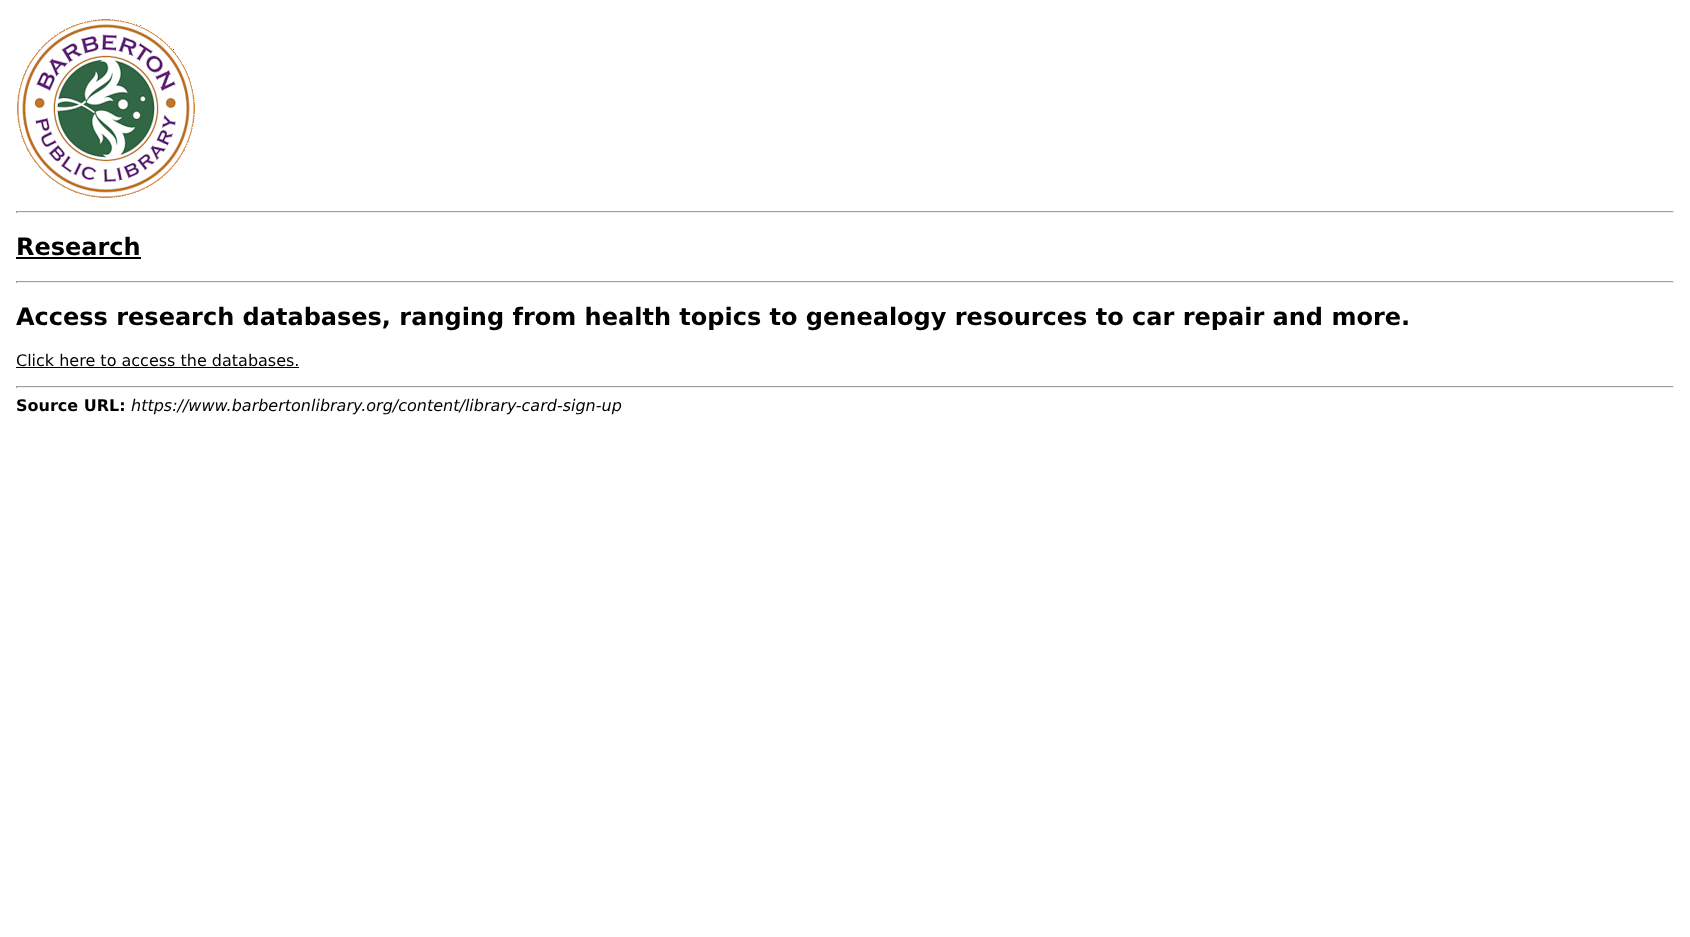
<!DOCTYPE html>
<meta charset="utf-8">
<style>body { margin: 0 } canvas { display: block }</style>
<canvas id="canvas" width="1690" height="937"></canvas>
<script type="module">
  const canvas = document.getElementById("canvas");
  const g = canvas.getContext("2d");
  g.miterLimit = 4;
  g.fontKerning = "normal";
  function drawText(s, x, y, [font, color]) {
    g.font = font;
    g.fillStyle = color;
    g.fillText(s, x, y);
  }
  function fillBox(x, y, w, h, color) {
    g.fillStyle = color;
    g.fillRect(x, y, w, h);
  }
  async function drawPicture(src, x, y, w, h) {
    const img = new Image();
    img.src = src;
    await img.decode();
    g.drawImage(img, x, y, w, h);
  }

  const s1 = ["bold 24px DejaVu Sans", "#000000"];
  const s2 = ["16px DejaVu Sans", "#000000"];
  const s3 = ["bold 16px DejaVu Sans", "#000000"];
  const s4 = ["italic 16px DejaVu Sans", "#000000"];

  fillBox(0, 0, 1690, 937, "#FFFFFF");
  await drawPicture("pic1.png", 17, 19, 178, 179);
  fillBox(16, 211, 1658, 1, "#9F9F9F");
  fillBox(1673, 211, 1, 2, "#EEEEEE");
  fillBox(16, 212, 1658, 1, "#EEEEEE");
  fillBox(16, 211, 1, 2, "#9F9F9F");
  drawText("Research", 16, 255, s1);
  fillBox(16, 257, 125, 2, "#000000");
  fillBox(16, 281, 1658, 1, "#9F9F9F");
  fillBox(1673, 281, 1, 2, "#EEEEEE");
  fillBox(16, 282, 1658, 1, "#EEEEEE");
  fillBox(16, 281, 1, 2, "#9F9F9F");
  drawText("Access research databases, ranging from health topics to genealogy resources to car repair and more.", 16, 325, s1);
  drawText("Click here to access the databases.", 16, 366, s2);
  fillBox(16, 367, 283, 1, "#000000");
  fillBox(16, 386, 1658, 1, "#9F9F9F");
  fillBox(1673, 386, 1, 2, "#EEEEEE");
  fillBox(16, 387, 1658, 1, "#EEEEEE");
  fillBox(16, 386, 1, 2, "#9F9F9F");
  drawText("Source URL:", 16, 411, s3);
  drawText("https://www.barbertonlibrary.org/content/library-card-sign-up", 131, 411, s4);
</script>
